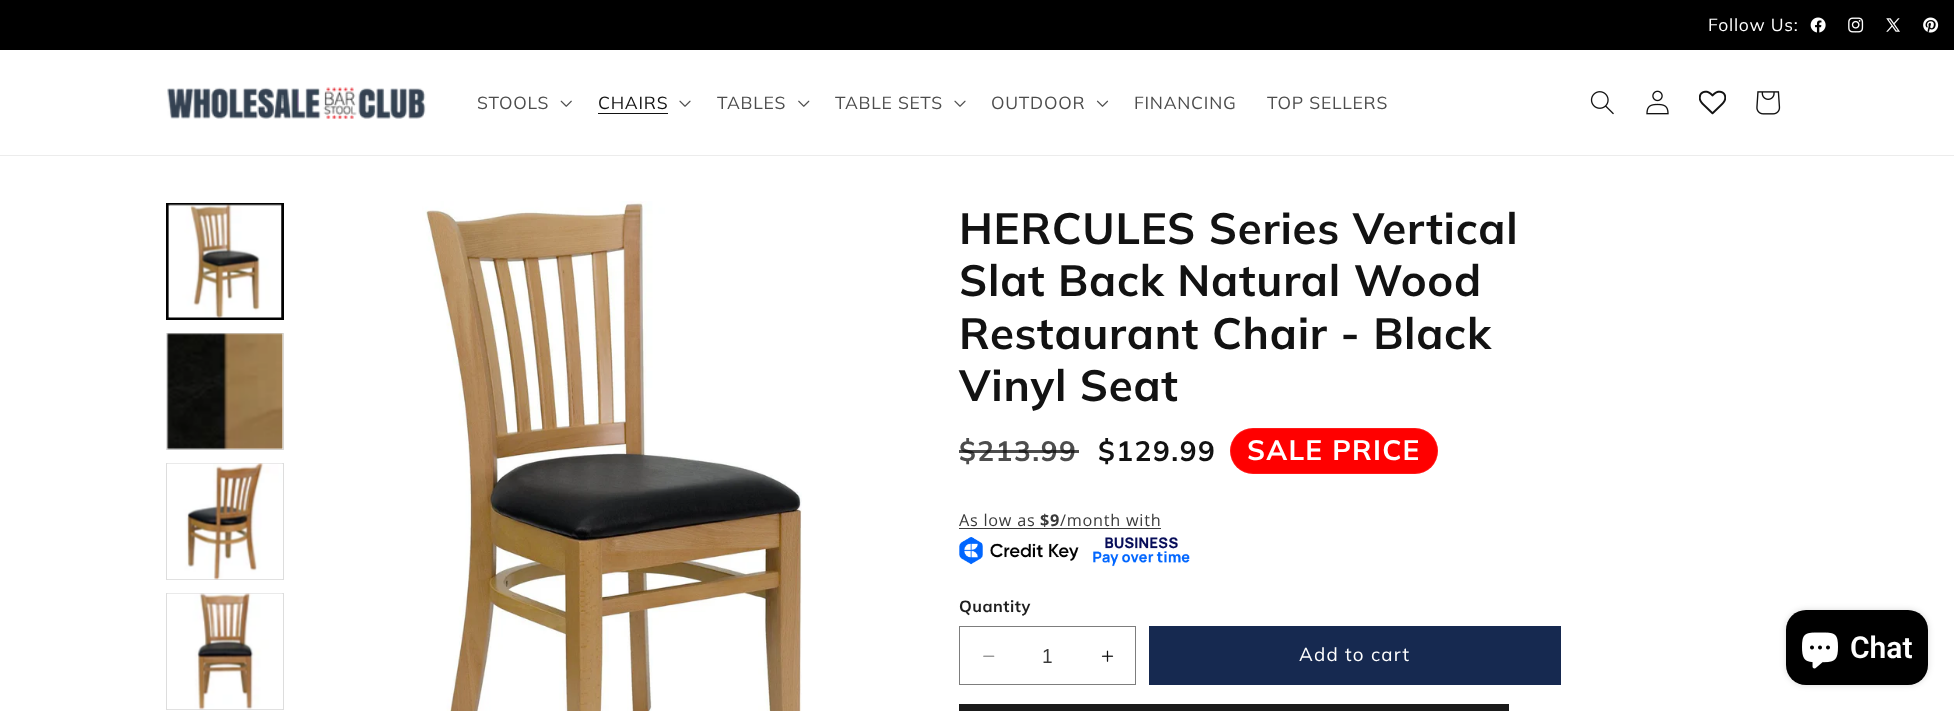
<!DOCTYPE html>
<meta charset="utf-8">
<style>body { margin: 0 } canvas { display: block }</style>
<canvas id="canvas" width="1954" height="711"></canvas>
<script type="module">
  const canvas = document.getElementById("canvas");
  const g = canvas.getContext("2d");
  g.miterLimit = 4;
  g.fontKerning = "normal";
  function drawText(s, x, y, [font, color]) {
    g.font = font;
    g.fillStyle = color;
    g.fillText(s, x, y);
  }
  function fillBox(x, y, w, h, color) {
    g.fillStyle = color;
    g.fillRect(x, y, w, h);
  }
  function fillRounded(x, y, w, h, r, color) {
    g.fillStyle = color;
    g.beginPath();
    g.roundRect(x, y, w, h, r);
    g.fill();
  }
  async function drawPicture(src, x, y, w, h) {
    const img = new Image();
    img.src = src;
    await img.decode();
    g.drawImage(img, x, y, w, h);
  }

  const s1 = ["17.5px Muli", "#FFFFFF"];
  const s2 = ["17.5px Muli", "#4D4D4D"];
  const s3 = ["17.5px Muli", "#121212"];
  const s4 = ["bold 43.75px Muli", "#121212"];
  const s5 = ["bold 28px Muli", "#4D4D4D"];
  const s6 = ["bold 28px Muli", "#121212"];
  const s7 = ["bold 28px Muli", "#FFFFFF"];
  const s8 = ["16.25px Open Sans", "#3A3A3A"];
  const s9 = ["bold 16.25px Open Sans", "#3A3A3A"];
  const s10 = ["bold 16.25px Muli", "#1E1E1E"];
  const s11 = ["20px Muli", "#3A3A3A"];
  const s12 = ["18.75px Muli", "#FFFFFF"];
  const s13 = ["600 30px Roboto", "#FFFFFF"];

  fillBox(0, 0, 1954, 711, "#FFFFFF");
  fillBox(0, 0, 1954, 50, "#000000");
  g.letterSpacing = "0.75px";
  drawText("Follow Us:", 1708, 31, s1);
  await drawPicture("pic1.png", 1810, 17, 16, 16);
  await drawPicture("pic2.png", 1848, 17, 16, 16);
  await drawPicture("pic3.png", 1886, 18, 14, 14);
  await drawPicture("pic4.png", 1923, 17, 16, 16);
  fillBox(0, 155, 1954, 1, "#ECECEC");
  await drawPicture("pic5.png", 167, 87, 259, 32);
  drawText("STOOLS", 477, 109, s2);
  await drawPicture("pic6.png", 560, 100, 12, 7);
  drawText("CHAIRS", 598, 109, s3);
  fillBox(598, 113, 70, 1, "#121212");
  await drawPicture("pic7.png", 679, 100, 12, 7);
  drawText("TABLES", 717, 109, s2);
  await drawPicture("pic8.png", 798, 100, 12, 7);
  drawText("TABLE SETS", 835, 109, s2);
  await drawPicture("pic7.png", 954, 100, 12, 7);
  drawText("OUTDOOR", 991, 109, s2);
  await drawPicture("pic9.png", 1096, 100, 13, 7);
  drawText("FINANCING", 1134, 109, s2);
  drawText("TOP SELLERS", 1267, 109, s2);
  await drawPicture("pic10.png", 1590, 91, 24, 24);
  await drawPicture("pic11.png", 1646, 90, 23, 25);
  await drawPicture("pic12.png", 1699, 90, 27, 25);
  await drawPicture("pic13.png", 1756, 91, 25, 24);
  g.strokeStyle = "#000000";
  g.lineWidth = 3;
  g.strokeRect(167.5, 204.5, 115, 114);
  await drawPicture("pic14.png", 168, 204, 114, 114);
  g.strokeStyle = "#DDDDDD";
  g.lineWidth = 1;
  g.strokeRect(166.5, 333.5, 117, 116);
  await drawPicture("pic15.png", 167, 333, 117, 117);
  g.strokeRect(166.5, 463.5, 117, 116);
  await drawPicture("pic16.png", 167, 463, 116, 117);
  g.strokeRect(166.5, 593.5, 117, 116);
  await drawPicture("pic17.png", 167, 593, 116, 117);
  await drawPicture("pic18.png", 422, 201, 380, 510);
  drawText("HERCULES Series Vertical", 959, 244, s4);
  drawText("Slat Back Natural Wood", 959, 296, s4);
  drawText("Restaurant Chair - Black", 959, 349, s4);
  drawText("Vinyl Seat", 959, 401, s4);
  g.letterSpacing = "1.5px";
  drawText("$213.99", 959, 461, s5);
  fillBox(959, 450, 120, 3, "rgba(18, 18, 18, 0.75)");
  drawText("$129.99", 1098, 461, s6);
  fillRounded(1230, 428, 208, 46, 23, "#FF0000");
  g.beginPath();
  g.roundRect(1230.5, 428.5, 207, 45, 22.5);
  g.strokeStyle = "rgba(255, 255, 255, 0.1)";
  g.stroke();
  g.letterSpacing = "1.25px";
  drawText("SALE PRICE", 1247, 460, s7);
  g.letterSpacing = "0.75px";
  drawText("As low as", 959, 526, s8);
  fillBox(959, 528, 202, 1, "#3A3A3A");
  drawText("$9", 1040, 526, s9);
  drawText("/month with", 1060, 526, s8);
  await drawPicture("pic19.png", 959, 537, 231, 30);
  g.letterSpacing = "0.5px";
  drawText("Quantity", 959, 612, s10);
  await drawPicture("pic20.png", 983, 655, 12, 2);
  await drawPicture("pic21.png", 1101, 650, 13, 12);
  g.strokeStyle = "#7D7D7D";
  g.strokeRect(959.5, 626.5, 176, 58);
  g.letterSpacing = "0px";
  drawText("1", 1041, 663, s11);
  fillBox(1149, 626, 412, 59, "#162950");
  g.letterSpacing = "1.25px";
  drawText("Add to cart", 1299, 661, s12);
  fillBox(959, 704, 550, 7, "#1A1A1A");
  g.fillStyle = "rgba(0, 0, 0, 0.15)";
  g.filter = "blur(3px)";
  g.beginPath();
  g.roundRect(1786, 610, 142, 75, 20);
  g.fill();
  g.filter = "none";
  fillRounded(1786, 610, 142, 75, 20, "#000000");
  await drawPicture("pic22.png", 1802, 632, 36, 37);
  g.letterSpacing = "0px";
  drawText("Chat", 1850, 658, s13);
</script>
